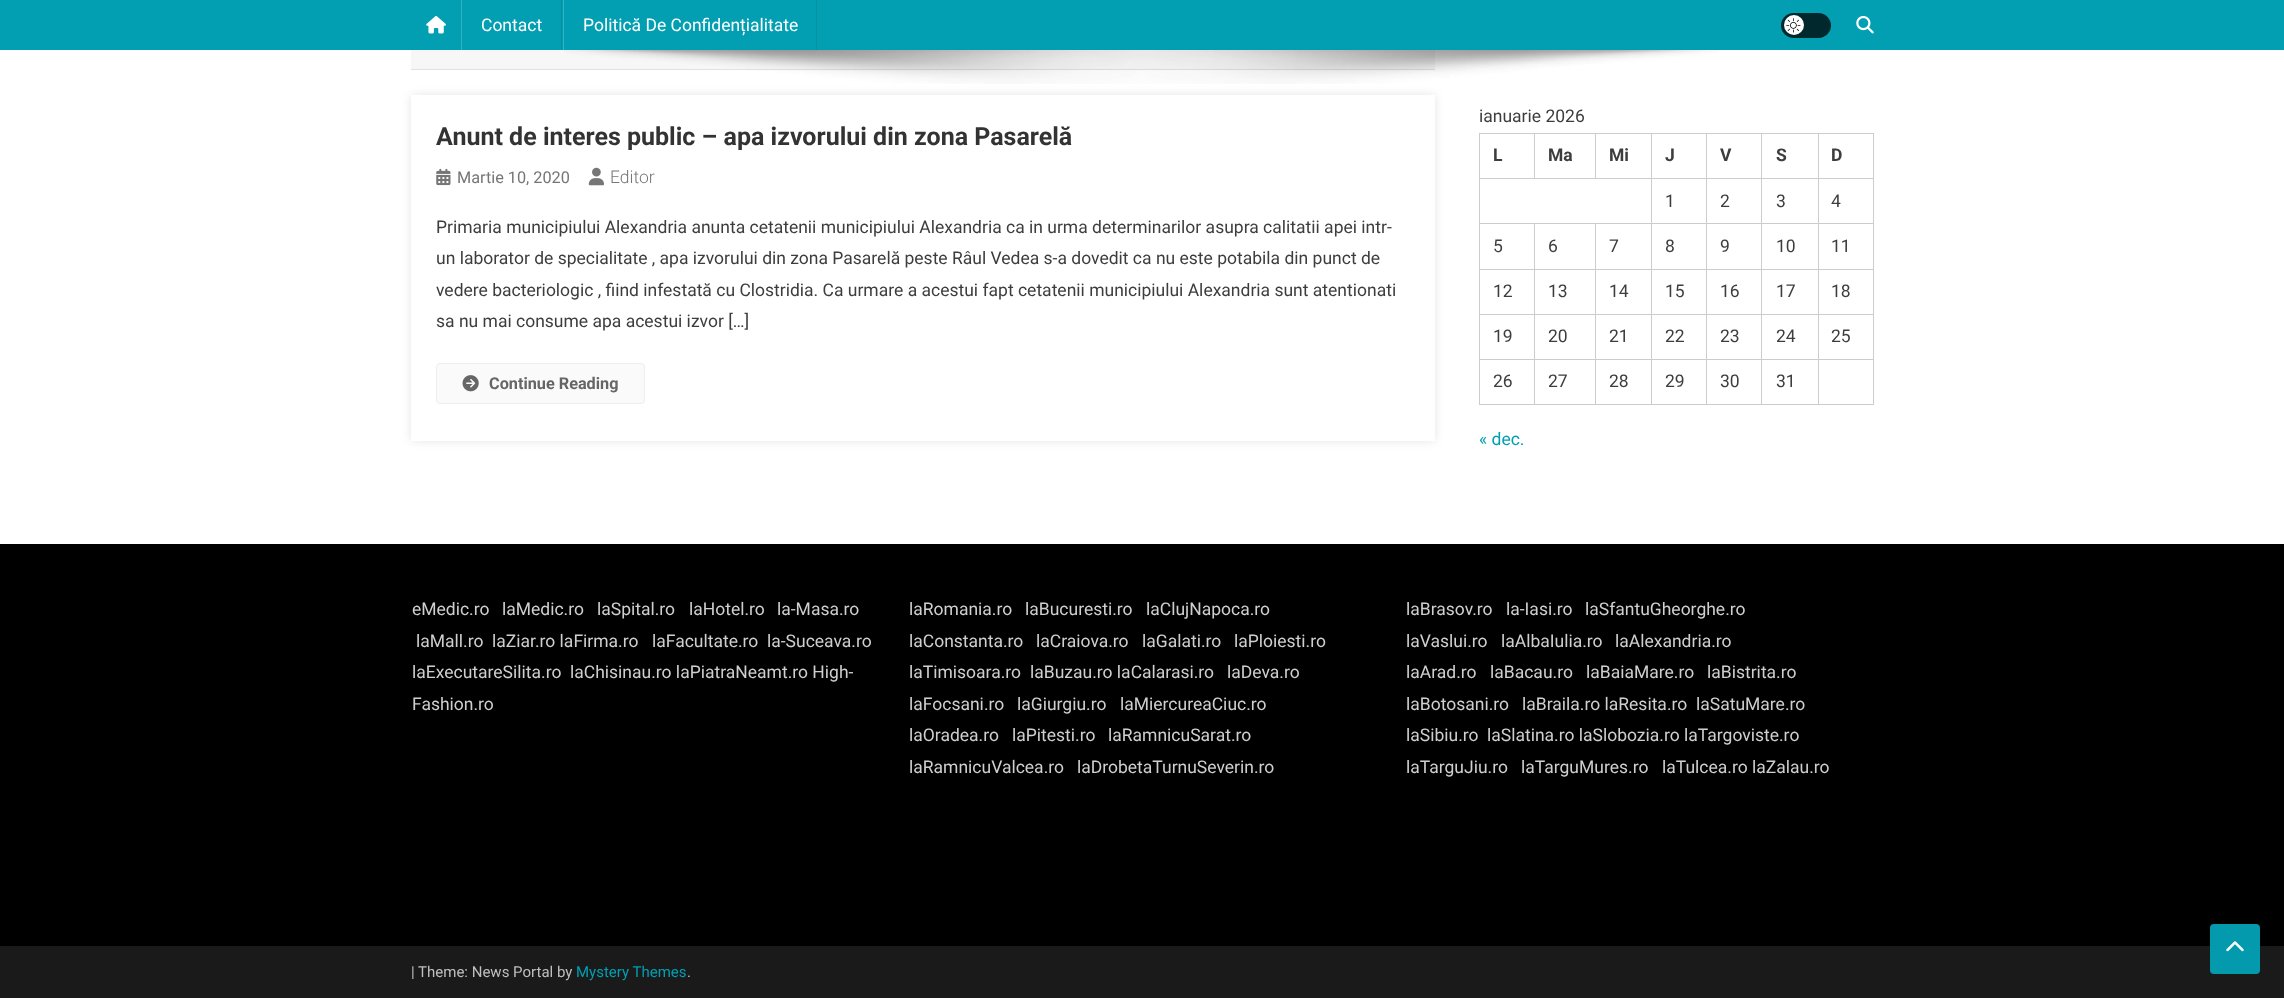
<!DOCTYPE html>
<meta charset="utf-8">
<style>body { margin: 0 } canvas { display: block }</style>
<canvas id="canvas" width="2284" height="998"></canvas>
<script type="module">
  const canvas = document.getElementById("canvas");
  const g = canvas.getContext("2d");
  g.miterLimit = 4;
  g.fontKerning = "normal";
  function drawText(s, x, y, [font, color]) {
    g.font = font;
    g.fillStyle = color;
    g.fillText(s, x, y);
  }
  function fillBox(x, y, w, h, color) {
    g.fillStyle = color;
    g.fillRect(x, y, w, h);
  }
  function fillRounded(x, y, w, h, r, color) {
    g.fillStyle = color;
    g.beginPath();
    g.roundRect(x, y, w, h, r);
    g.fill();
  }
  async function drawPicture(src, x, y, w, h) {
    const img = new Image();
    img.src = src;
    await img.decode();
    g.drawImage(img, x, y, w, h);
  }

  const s1 = ["17.5px Roboto", "#FFFFFF"];
  const s2 = ["bold 25px Roboto", "#333333"];
  const s3 = ["16.25px Roboto", "#767676"];
  const s4 = ["300 17.5px Roboto", "#767676"];
  const s5 = ["17.5px Roboto", "#3D3D3D"];
  const s6 = ["bold 16.25px Roboto", "#666666"];
  const s7 = ["bold 17.5px Roboto", "#3D3D3D"];
  const s8 = ["17.5px Roboto", "#029FB2"];
  const s9 = ["17.5px Roboto", "#CFCFCF"];
  const s10 = ["15px Roboto", "#BFBFBF"];
  const s11 = ["15px Roboto", "#029FB2"];

  fillBox(0, 0, 2284, 998, "#FFFFFF");
  fillBox(0, 0, 2284, 50, "#029FB2");
  await drawPicture("pic1.png", 426, 16, 20, 18);
  fillBox(561, 0, 1, 50, "#0292A4");
  fillBox(461, 0, 1, 50, "#35B2C1");
  drawText("Contact", 481, 31, s1);
  fillBox(816, 0, 1, 50, "#0292A4");
  fillBox(563, 0, 1, 50, "#35B2C1");
  drawText("Politică De Confidențialitate", 583, 31, s1);
  fillRounded(1781, 13, 50, 25, 12.5, "#01282D");
  g.fillStyle = "#FFFFFF";
  g.beginPath();
  g.arc(1794, 25, 10, 0, Math.PI * 2);
  g.fill();
  await drawPicture("pic2.png", 1786, 18, 15, 15);
  await drawPicture("pic3.png", 1856, 15, 18, 19);
  fillBox(411, 50, 1024, 19, "#F7F7F7");
  fillBox(411, 69, 1024, 1, "#E1E1E1");
  g.save();
  g.beginPath();
  g.moveTo(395, 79);
  g.lineTo(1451, 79);
  g.lineTo(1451, 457);
  g.lineTo(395, 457);
  g.closePath();
  g.moveTo(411, 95);
  g.lineTo(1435, 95);
  g.lineTo(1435, 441);
  g.lineTo(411, 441);
  g.closePath();
  g.clip("evenodd");
  g.fillStyle = "rgba(0, 0, 0, 0.1)";
  g.filter = "blur(5px)";
  g.beginPath();
  g.rect(411, 95, 1024, 346);
  g.fill();
  g.filter = "none";
  g.restore();
  await drawPicture("pic4.png", 564, 50, 1155, 34);
  drawText("Anunt de interes public – apa izvorului din zona Pasarelă", 436, 145, s2);
  await drawPicture("pic5.png", 436, 168, 15, 18);
  drawText("Martie 10, 2020", 457, 183, s3);
  await drawPicture("pic6.png", 588, 167, 16, 19);
  drawText("Editor", 610, 183, s4);
  drawText("Primaria municipiului Alexandria anunta cetatenii municipiului Alexandria ca in urma determinarilor asupra calitatii apei intr-", 436, 233, s5);
  drawText("un laborator de specialitate , apa izvorului din zona Pasarelă peste Râul Vedea s-a dovedit ca nu este potabila din punct de", 436, 264, s5);
  drawText("vedere bacteriologic , fiind infestată cu Clostridia. Ca urmare a acestui fapt cetatenii municipiului Alexandria sunt atentionati", 436, 296, s5);
  drawText("sa nu mai consume apa acestui izvor […]", 436, 327, s5);
  g.fillStyle = "#FAFAFA";
  g.beginPath();
  g.roundRect(436.5, 363.5, 208, 40, 3.5);
  g.fill();
  g.strokeStyle = "#EEEEEE";
  g.stroke();
  await drawPicture("pic7.png", 462, 375, 17, 17);
  drawText("Continue Reading", 489, 389, s6);
  drawText("ianuarie 2026", 1479, 122, s5);
  fillBox(1818, 133, 56, 1, "#CCCCCC");
  fillBox(1818, 178, 56, 1, "#CCCCCC");
  fillBox(1818, 223, 56, 1, "#CCCCCC");
  fillBox(1818, 269, 56, 1, "#CCCCCC");
  fillBox(1818, 314, 56, 1, "#CCCCCC");
  fillBox(1818, 359, 56, 1, "#CCCCCC");
  fillBox(1873, 359, 1, 46, "#CCCCCC");
  fillBox(1818, 404, 56, 1, "#CCCCCC");
  fillBox(1818, 359, 1, 46, "#CCCCCC");
  fillBox(1761, 359, 58, 1, "#CCCCCC");
  fillBox(1818, 314, 1, 46, "#CCCCCC");
  fillBox(1761, 314, 58, 1, "#CCCCCC");
  fillBox(1818, 269, 1, 46, "#CCCCCC");
  fillBox(1761, 269, 58, 1, "#CCCCCC");
  fillBox(1818, 223, 1, 47, "#CCCCCC");
  fillBox(1761, 223, 58, 1, "#CCCCCC");
  fillBox(1818, 178, 1, 46, "#CCCCCC");
  fillBox(1761, 178, 58, 1, "#CCCCCC");
  fillBox(1818, 133, 1, 46, "#CCCCCC");
  fillBox(1761, 133, 58, 1, "#CCCCCC");
  fillBox(1761, 404, 58, 1, "#CCCCCC");
  fillBox(1761, 359, 1, 46, "#CCCCCC");
  fillBox(1706, 359, 57, 1, "#CCCCCC");
  fillBox(1761, 314, 1, 46, "#CCCCCC");
  fillBox(1706, 314, 57, 1, "#CCCCCC");
  fillBox(1761, 269, 1, 46, "#CCCCCC");
  fillBox(1706, 269, 57, 1, "#CCCCCC");
  fillBox(1761, 223, 1, 47, "#CCCCCC");
  fillBox(1706, 223, 57, 1, "#CCCCCC");
  fillBox(1761, 178, 1, 46, "#CCCCCC");
  fillBox(1706, 178, 57, 1, "#CCCCCC");
  fillBox(1761, 133, 1, 46, "#CCCCCC");
  fillBox(1706, 133, 57, 1, "#CCCCCC");
  fillBox(1706, 404, 57, 1, "#CCCCCC");
  fillBox(1706, 359, 1, 46, "#CCCCCC");
  fillBox(1651, 359, 57, 1, "#CCCCCC");
  fillBox(1706, 314, 1, 46, "#CCCCCC");
  fillBox(1651, 314, 57, 1, "#CCCCCC");
  fillBox(1706, 269, 1, 46, "#CCCCCC");
  fillBox(1651, 269, 57, 1, "#CCCCCC");
  fillBox(1706, 223, 1, 47, "#CCCCCC");
  fillBox(1651, 223, 57, 1, "#CCCCCC");
  fillBox(1706, 178, 1, 46, "#CCCCCC");
  fillBox(1651, 178, 57, 1, "#CCCCCC");
  fillBox(1706, 133, 1, 46, "#CCCCCC");
  fillBox(1651, 133, 57, 1, "#CCCCCC");
  fillBox(1651, 404, 57, 1, "#CCCCCC");
  fillBox(1651, 359, 1, 46, "#CCCCCC");
  fillBox(1595, 359, 58, 1, "#CCCCCC");
  fillBox(1651, 314, 1, 46, "#CCCCCC");
  fillBox(1595, 314, 58, 1, "#CCCCCC");
  fillBox(1651, 269, 1, 46, "#CCCCCC");
  fillBox(1595, 269, 58, 1, "#CCCCCC");
  fillBox(1651, 223, 1, 47, "#CCCCCC");
  fillBox(1595, 223, 58, 1, "#CCCCCC");
  fillBox(1651, 178, 1, 46, "#CCCCCC");
  fillBox(1479, 178, 174, 1, "#CCCCCC");
  fillBox(1651, 133, 1, 46, "#CCCCCC");
  fillBox(1595, 133, 58, 1, "#CCCCCC");
  fillBox(1595, 133, 1, 46, "#CCCCCC");
  fillBox(1534, 133, 62, 1, "#CCCCCC");
  fillBox(1534, 133, 1, 46, "#CCCCCC");
  fillBox(1479, 133, 56, 1, "#CCCCCC");
  fillBox(1595, 404, 58, 1, "#CCCCCC");
  fillBox(1595, 359, 1, 46, "#CCCCCC");
  fillBox(1534, 359, 62, 1, "#CCCCCC");
  fillBox(1595, 314, 1, 46, "#CCCCCC");
  fillBox(1534, 314, 62, 1, "#CCCCCC");
  fillBox(1595, 269, 1, 46, "#CCCCCC");
  fillBox(1534, 269, 62, 1, "#CCCCCC");
  fillBox(1595, 223, 1, 47, "#CCCCCC");
  fillBox(1534, 223, 62, 1, "#CCCCCC");
  fillBox(1534, 404, 62, 1, "#CCCCCC");
  fillBox(1534, 359, 1, 46, "#CCCCCC");
  fillBox(1479, 359, 56, 1, "#CCCCCC");
  fillBox(1534, 314, 1, 46, "#CCCCCC");
  fillBox(1479, 314, 56, 1, "#CCCCCC");
  fillBox(1534, 269, 1, 46, "#CCCCCC");
  fillBox(1479, 269, 56, 1, "#CCCCCC");
  fillBox(1534, 223, 1, 47, "#CCCCCC");
  fillBox(1479, 223, 56, 1, "#CCCCCC");
  fillBox(1479, 404, 56, 1, "#CCCCCC");
  fillBox(1479, 359, 1, 46, "#CCCCCC");
  fillBox(1479, 314, 1, 46, "#CCCCCC");
  fillBox(1479, 269, 1, 46, "#CCCCCC");
  fillBox(1479, 223, 1, 47, "#CCCCCC");
  fillBox(1479, 178, 1, 46, "#CCCCCC");
  fillBox(1479, 133, 1, 46, "#CCCCCC");
  drawText("L", 1493, 161, s7);
  drawText("Ma", 1548, 161, s7);
  drawText("Mi", 1609, 161, s7);
  drawText("J", 1665, 161, s7);
  drawText("V", 1720, 161, s7);
  drawText("S", 1776, 161, s7);
  fillBox(1873, 314, 1, 46, "#CCCCCC");
  fillBox(1873, 269, 1, 46, "#CCCCCC");
  fillBox(1873, 223, 1, 47, "#CCCCCC");
  fillBox(1873, 178, 1, 46, "#CCCCCC");
  fillBox(1873, 133, 1, 46, "#CCCCCC");
  drawText("D", 1831, 161, s7);
  drawText("1", 1665, 207, s5);
  drawText("2", 1720, 207, s5);
  drawText("3", 1776, 207, s5);
  drawText("4", 1831, 207, s5);
  drawText("5", 1493, 252, s5);
  drawText("6", 1548, 252, s5);
  drawText("7", 1609, 252, s5);
  drawText("8", 1665, 252, s5);
  drawText("9", 1720, 252, s5);
  drawText("10", 1776, 252, s5);
  drawText("11", 1831, 252, s5);
  drawText("12", 1493, 297, s5);
  drawText("13", 1548, 297, s5);
  drawText("14", 1609, 297, s5);
  drawText("15", 1665, 297, s5);
  drawText("16", 1720, 297, s5);
  drawText("17", 1776, 297, s5);
  drawText("18", 1831, 297, s5);
  drawText("19", 1493, 342, s5);
  drawText("20", 1548, 342, s5);
  drawText("21", 1609, 342, s5);
  drawText("22", 1665, 342, s5);
  drawText("23", 1720, 342, s5);
  drawText("24", 1776, 342, s5);
  drawText("25", 1831, 342, s5);
  drawText("26", 1493, 387, s5);
  drawText("27", 1548, 387, s5);
  drawText("28", 1609, 387, s5);
  drawText("29", 1665, 387, s5);
  drawText("30", 1720, 387, s5);
  drawText("31", 1776, 387, s5);
  drawText("« dec.", 1479, 445, s8);
  fillBox(0, 544, 2284, 402, "#000000");
  drawText("eMedic.ro", 412, 615, s9);
  drawText("laMedic.ro", 502, 615, s9);
  drawText("laSpital.ro", 597, 615, s9);
  drawText("laHotel.ro", 689, 615, s9);
  drawText("la-Masa.ro", 777, 615, s9);
  drawText("laMall.ro", 416, 647, s9);
  drawText("laZiar.ro laFirma.ro", 492, 647, s9);
  drawText("laFacultate.ro", 652, 647, s9);
  drawText("la-Suceava.ro", 767, 647, s9);
  drawText("laExecutareSilita.ro", 412, 678, s9);
  drawText("laChisinau.ro laPiatraNeamt.ro High-", 570, 678, s9);
  drawText("Fashion.ro", 412, 710, s9);
  drawText("laRomania.ro", 909, 615, s9);
  drawText("laBucuresti.ro", 1025, 615, s9);
  drawText("laClujNapoca.ro", 1146, 615, s9);
  drawText("laConstanta.ro", 909, 647, s9);
  drawText("laCraiova.ro", 1036, 647, s9);
  drawText("laGalati.ro", 1142, 647, s9);
  drawText("laPloiesti.ro", 1234, 647, s9);
  drawText("laTimisoara.ro", 909, 678, s9);
  drawText("laBuzau.ro laCalarasi.ro", 1030, 678, s9);
  drawText("laDeva.ro", 1227, 678, s9);
  drawText("laFocsani.ro", 909, 710, s9);
  drawText("laGiurgiu.ro", 1017, 710, s9);
  drawText("laMiercureaCiuc.ro", 1120, 710, s9);
  drawText("laOradea.ro", 909, 741, s9);
  drawText("laPitesti.ro", 1012, 741, s9);
  drawText("laRamnicuSarat.ro", 1108, 741, s9);
  drawText("laRamnicuValcea.ro", 909, 773, s9);
  drawText("laDrobetaTurnuSeverin.ro", 1077, 773, s9);
  drawText("laBrasov.ro", 1406, 615, s9);
  drawText("la-Iasi.ro", 1506, 615, s9);
  drawText("laSfantuGheorghe.ro", 1585, 615, s9);
  drawText("laVaslui.ro", 1406, 647, s9);
  drawText("laAlbaIulia.ro", 1501, 647, s9);
  drawText("laAlexandria.ro", 1615, 647, s9);
  drawText("laArad.ro", 1406, 678, s9);
  drawText("laBacau.ro", 1490, 678, s9);
  drawText("laBaiaMare.ro", 1586, 678, s9);
  drawText("laBistrita.ro", 1707, 678, s9);
  drawText("laBotosani.ro", 1406, 710, s9);
  drawText("laBraila.ro laResita.ro", 1522, 710, s9);
  drawText("laSatuMare.ro", 1696, 710, s9);
  drawText("laSibiu.ro", 1406, 741, s9);
  drawText("laSlatina.ro laSlobozia.ro laTargoviste.ro", 1487, 741, s9);
  drawText("laTarguJiu.ro", 1406, 773, s9);
  drawText("laTarguMures.ro", 1521, 773, s9);
  drawText("laTulcea.ro laZalau.ro", 1662, 773, s9);
  fillBox(0, 946, 2284, 52, "#1A1A1A");
  drawText("| Theme: News Portal by", 411, 977, s10);
  drawText("Mystery Themes", 576, 977, s11);
  drawText(".", 687, 977, s10);
  fillRounded(2210, 924, 50, 50, 4, "rgba(2, 159, 178, 0.97)");
  await drawPicture("pic8.png", 2226, 941, 18, 11);
</script>
